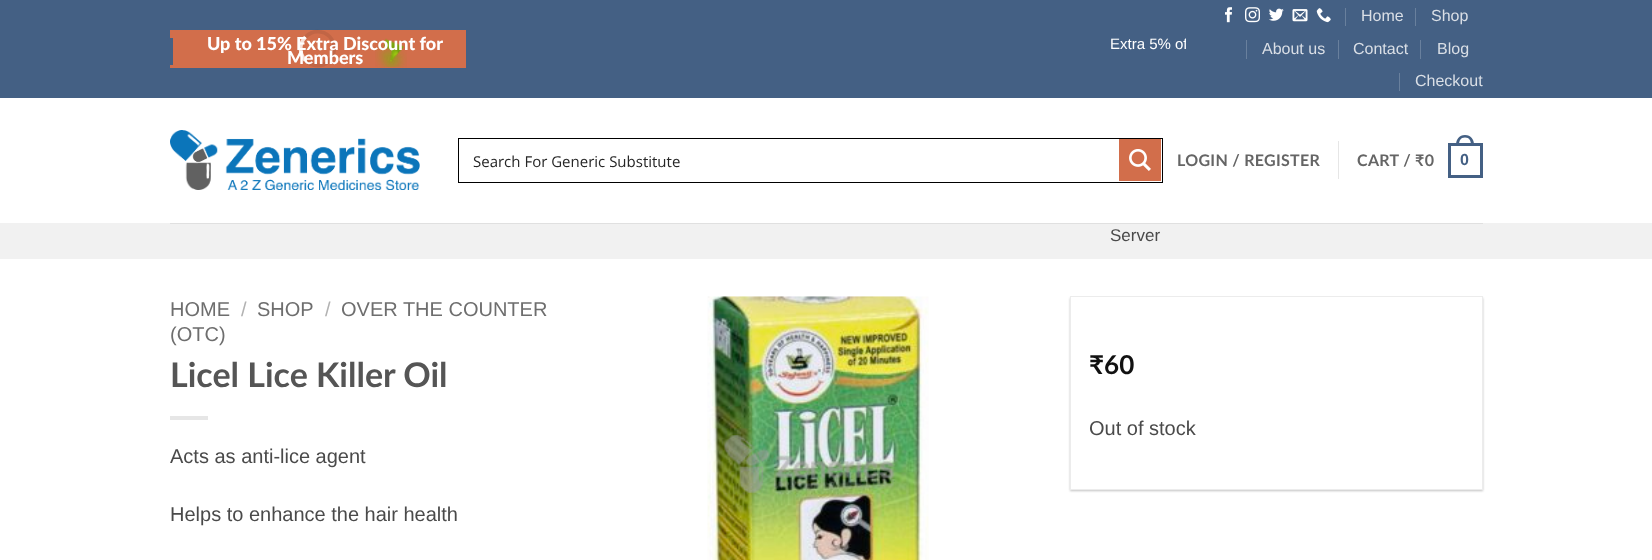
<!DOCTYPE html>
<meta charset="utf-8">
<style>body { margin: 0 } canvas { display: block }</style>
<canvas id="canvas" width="1652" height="560"></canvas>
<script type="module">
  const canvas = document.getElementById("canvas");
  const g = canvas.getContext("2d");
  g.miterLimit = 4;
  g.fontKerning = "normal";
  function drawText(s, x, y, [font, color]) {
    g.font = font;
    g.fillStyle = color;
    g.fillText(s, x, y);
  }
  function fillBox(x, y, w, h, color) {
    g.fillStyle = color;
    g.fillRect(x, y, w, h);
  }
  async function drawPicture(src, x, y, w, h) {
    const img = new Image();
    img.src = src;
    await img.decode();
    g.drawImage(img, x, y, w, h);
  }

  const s1 = ["900 18px Lato", "#FFFFFF"];
  const s2 = ["15px Liberation Sans", "#FFFFFF"];
  const s3 = ["16px Liberation Sans", "#DADFE6"];
  const s4 = ["15px Open Sans", "#262626"];
  const s5 = ["bold 16px Lato", "#656565"];
  const s6 = ["bold 16px Liberation Sans", "#446084"];
  const s7 = ["17px Liberation Sans", "#4A4A4A"];
  const s8 = ["20px Liberation Sans", "#6E6E6E"];
  const s9 = ["20px Liberation Sans", "#B2B2B2"];
  const s10 = ["bold 34px Lato", "#555555"];
  const s11 = ["20px Liberation Sans", "#4A4A4A"];
  const s12 = ["bold 26px Lato", "#111111"];

  fillBox(0, 0, 1652, 560, "#FFFFFF");
  fillBox(0, 0, 1652, 98, "#446084");
  fillBox(170, 30, 296, 38, "#D26E4B");
  g.beginPath();
  g.moveTo(305.5, 37);
  g.bezierCurveTo(309.5, 33, 315.5, 31, 321, 32);
  g.bezierCurveTo(340.5, 36, 337.5, 65.5, 317.5, 65.5);
  g.bezierCurveTo(313, 65.5, 308.5, 64, 305.5, 60.5);
  g.strokeStyle = "rgba(0, 0, 0, 0.08)";
  g.lineWidth = 3.8;
  g.stroke();
  await drawPicture("pic1.png", 375, 38, 32, 30);
  drawText("Up to 15% Extra Discount for", 207, 50, s1);
  drawText("Members", 287, 64, s1);
  g.beginPath();
  g.moveTo(305.5, 60.5);
  g.bezierCurveTo(299, 54, 299, 43.5, 305.5, 37);
  g.strokeStyle = "rgba(255, 255, 255, 0.8)";
  g.stroke();
  fillBox(170, 38, 3, 27, "#446084");
  g.save();
  g.beginPath();
  g.rect(466, 33, 720, 25);
  g.clip();
  drawText("Extra 5% of", 1110, 49, s2);
  g.restore();
  await drawPicture("pic2.png", 1225, 7, 7, 16);
  await drawPicture("pic3.png", 1245, 7, 15, 16);
  await drawPicture("pic4.png", 1269, 8, 15, 13);
  await drawPicture("pic5.png", 1292, 9, 16, 13);
  await drawPicture("pic6.png", 1316, 8, 15, 15);
  fillBox(1345, 8, 1, 18, "#69809D");
  drawText("Home", 1361, 21, s3);
  fillBox(1415, 8, 1, 18, "#69809D");
  drawText("Shop", 1431, 21, s3);
  fillBox(1246, 40, 1, 19, "#69809D");
  drawText("About us", 1262, 54, s3);
  fillBox(1338, 40, 1, 19, "#69809D");
  drawText("Contact", 1353, 54, s3);
  fillBox(1420, 40, 1, 19, "#69809D");
  drawText("Blog", 1437, 54, s3);
  fillBox(1399, 73, 1, 18, "#69809D");
  drawText("Checkout", 1415, 86, s3);
  await drawPicture("pic7.png", 170, 130, 250, 60);
  g.strokeStyle = "#000000";
  g.lineWidth = 1;
  g.strokeRect(458.5, 138.5, 704, 44);
  drawText("Search For Generic Substitute", 473, 167, s4);
  fillBox(1119, 139, 42, 42, "#D26E4B");
  await drawPicture("pic8.png", 1129, 149, 22, 22);
  g.letterSpacing = "0.3px";
  drawText("LOGIN / REGISTER", 1177, 166, s5);
  fillBox(1338, 141, 1, 38, "#E6E6E6");
  drawText("CART / ₹0", 1357, 166, s5);
  g.strokeStyle = "#446084";
  g.lineWidth = 3;
  g.strokeRect(1449.5, 144.5, 32, 32);
  g.fillStyle = "#446084";
  g.beginPath();
  g.moveTo(1465, 135);
  g.bezierCurveTo(1471, 135, 1474, 139.5, 1474, 145);
  g.lineTo(1456, 145);
  g.bezierCurveTo(1456, 139.5, 1459, 135, 1465, 135);
  g.closePath();
  g.moveTo(1465, 137.5);
  g.bezierCurveTo(1469.5, 137.5, 1471, 141, 1471, 145);
  g.lineTo(1459, 145);
  g.bezierCurveTo(1459, 141, 1460.5, 137.5, 1465, 137.5);
  g.closePath();
  g.fill("evenodd");
  drawText("0", 1460, 165, s6);
  fillBox(0, 223, 1652, 36, "#F1F1F1");
  fillBox(170, 223, 1313, 1, "#E0E0E0");
  g.letterSpacing = "0px";
  drawText("Server", 1110, 241, s7);
  drawText("HOME", 170, 316, s8);
  drawText("/", 241, 316, s9);
  drawText("SHOP", 257, 316, s8);
  drawText("/", 325, 316, s9);
  drawText("OVER THE COUNTER", 341, 316, s8);
  drawText("(OTC)", 170, 341, s8);
  drawText("Licel Lice Killer Oil", 170, 387, s10);
  fillBox(170, 416, 38, 4, "#E6E6E6");
  drawText("Acts as anti-lice agent", 170, 463, s11);
  drawText("Helps to enhance the hair health", 170, 521, s11);
  await drawPicture("pic9.png", 707, 296, 222, 264);
  g.save();
  g.beginPath();
  g.moveTo(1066, 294);
  g.lineTo(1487, 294);
  g.lineTo(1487, 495);
  g.lineTo(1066, 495);
  g.closePath();
  g.moveTo(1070, 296);
  g.lineTo(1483, 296);
  g.lineTo(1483, 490);
  g.lineTo(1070, 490);
  g.closePath();
  g.clip("evenodd");
  g.fillStyle = "rgba(0, 0, 0, 0.24)";
  g.filter = "blur(1px)";
  g.beginPath();
  g.rect(1070, 298, 413, 193);
  g.fill();
  g.filter = "none";
  g.restore();
  g.strokeStyle = "#ECECEC";
  g.lineWidth = 1;
  g.strokeRect(1070.5, 296.5, 412, 193);
  drawText("₹60", 1089, 374, s12);
  drawText("Out of stock", 1089, 435, s11);
</script>
